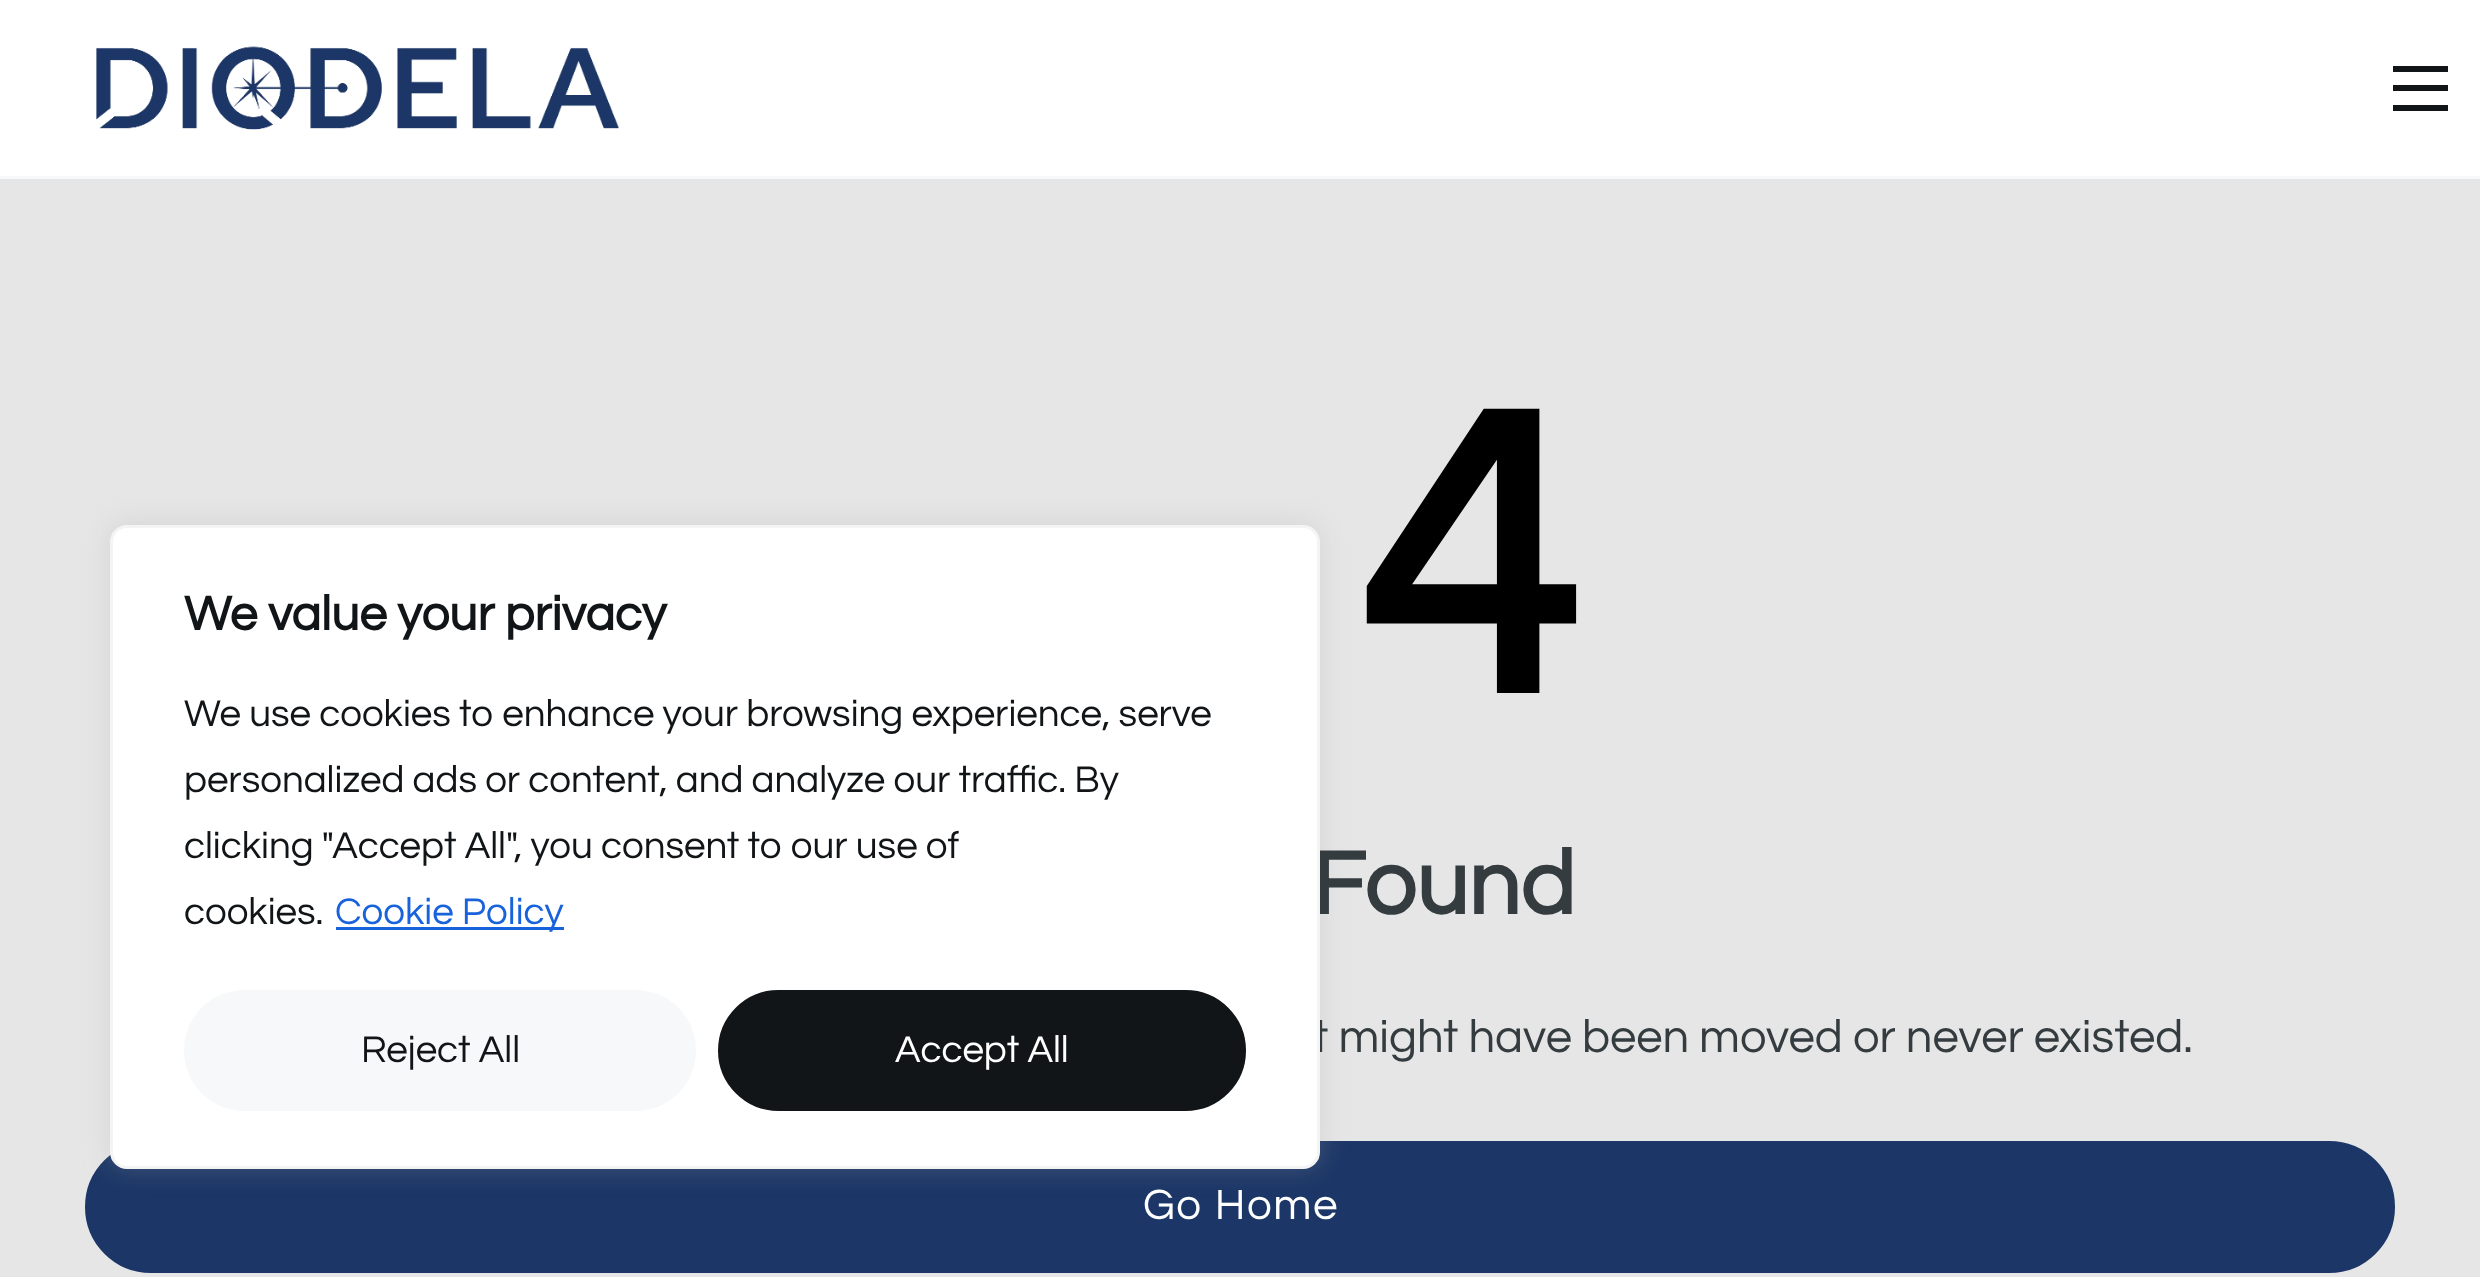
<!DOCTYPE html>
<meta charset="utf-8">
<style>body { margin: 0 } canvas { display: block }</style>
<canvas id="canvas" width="2480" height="1277"></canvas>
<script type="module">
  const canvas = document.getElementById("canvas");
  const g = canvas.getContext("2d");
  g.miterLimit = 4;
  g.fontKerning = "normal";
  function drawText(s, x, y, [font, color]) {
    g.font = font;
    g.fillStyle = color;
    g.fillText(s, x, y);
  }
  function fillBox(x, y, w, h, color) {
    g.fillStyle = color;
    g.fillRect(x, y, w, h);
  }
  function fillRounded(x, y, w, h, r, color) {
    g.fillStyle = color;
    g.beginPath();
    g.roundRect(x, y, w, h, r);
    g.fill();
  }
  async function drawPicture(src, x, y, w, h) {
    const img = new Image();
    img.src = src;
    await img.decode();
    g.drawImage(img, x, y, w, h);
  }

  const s1 = ["bold 92px Questrial", "#353C40"];
  const s2 = ["47.1px Questrial", "#353C40"];
  const s3 = ["bold 49.5px Questrial", "#111517"];
  const s4 = ["38.5px Questrial", "#111517"];
  const s5 = ["38.5px Questrial", "#1863DC"];
  const s6 = ["38.5px Questrial", "#FFFFFF"];
  const s7 = ["bold 412px Questrial", "#000000"];
  const s8 = ["44px Questrial", "#FFFFFF"];

  fillBox(0, 0, 2480, 1277, "#FFFFFF");
  fillBox(0, 176, 2480, 3, "#F6F8F9");
  await drawPicture("pic1.png", 96, 46, 523, 84);
  fillBox(2393, 66, 55, 6, "#111517");
  fillBox(2393, 85, 55, 6, "#111517");
  fillBox(2393, 105, 55, 6, "#111517");
  fillBox(0, 179, 2480, 1098, "#E6E6E6");
  g.fillStyle = "#1C3767";
  g.beginPath();
  g.roundRect(86.5, 1142.5, 2307, 129, 64.5);
  g.fill();
  g.strokeStyle = "#1C3767";
  g.lineWidth = 3;
  g.stroke();
  g.fillStyle = "rgba(172, 171, 171, 0.3)";
  g.filter = "blur(14px)";
  g.beginPath();
  g.roundRect(110, 523, 1210, 643, 17);
  g.fill();
  g.filter = "none";
  drawText("Found", 1312, 914, s1);
  drawText("t might have been moved or never existed.", 1313, 1052, s2);
  g.fillStyle = "#FFFFFF";
  g.beginPath();
  g.roundRect(111.5, 526.5, 1207, 641, 15.5);
  g.fill();
  g.strokeStyle = "#F4F4F4";
  g.stroke();
  drawText("We value your privacy", 184, 630, s3);
  drawText("We use cookies to enhance your browsing experience, serve", 184, 726, s4);
  drawText("personalized ads or content, and analyze our traffic. By", 184, 792, s4);
  drawText("clicking \"Accept All\", you consent to our use of", 184, 858, s4);
  drawText("cookies.", 184, 924, s4);
  fillBox(336, 927, 228, 3, "#1863DC");
  drawText("Cookie Policy", 335, 924, s5);
  fillRounded(184, 990, 512, 121, 60.5, "#F6F8F9");
  drawText("Reject All", 361, 1062, s4);
  g.beginPath();
  g.roundRect(721, 993, 522, 115, 57.5);
  g.fill();
  g.strokeStyle = "#111517";
  g.lineWidth = 6;
  g.stroke();
  drawText("Accept All", 895, 1062, s6);
  drawText("4", 1354, 693, s7);
  g.letterSpacing = "1.5px";
  drawText("Go Home", 1143, 1219, s8);
</script>
